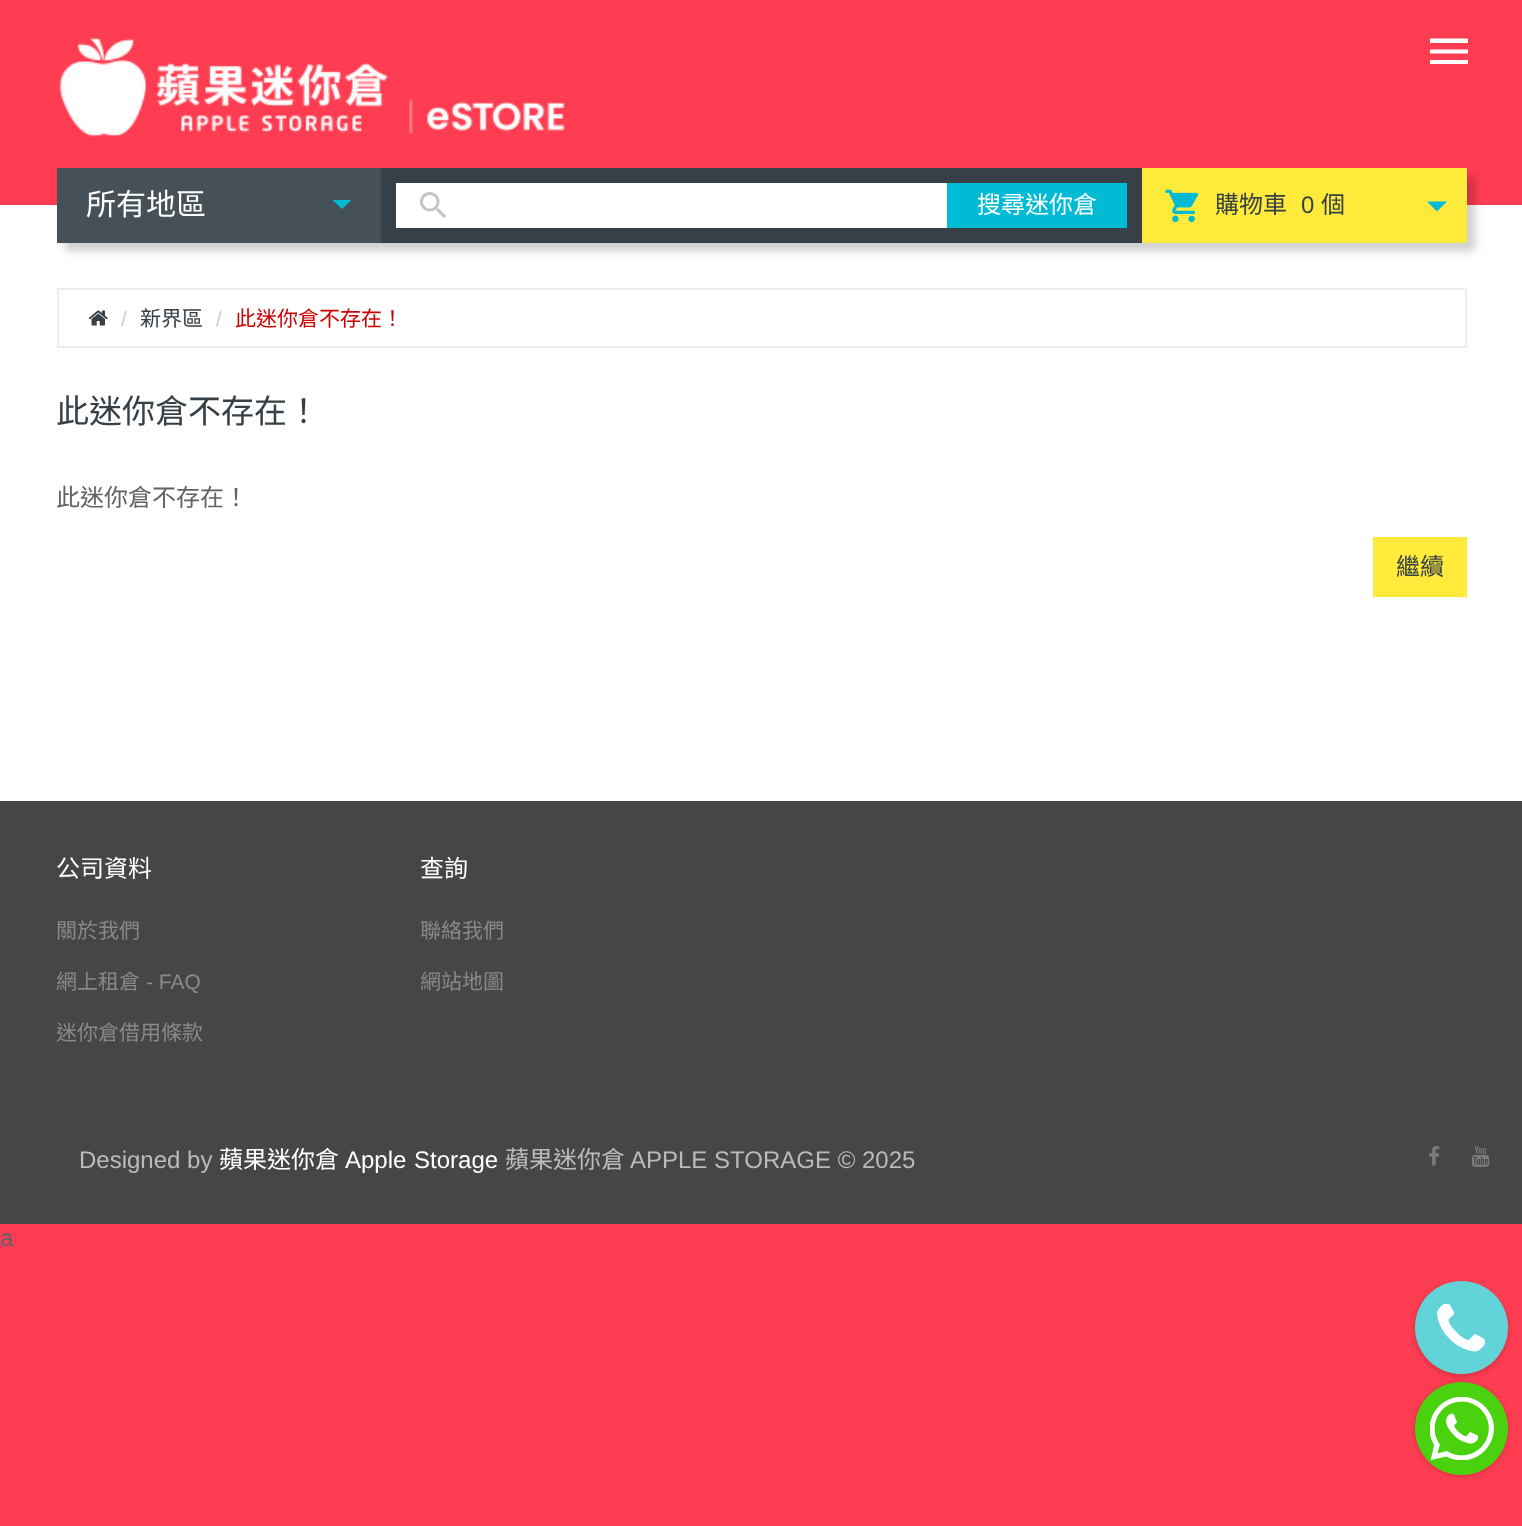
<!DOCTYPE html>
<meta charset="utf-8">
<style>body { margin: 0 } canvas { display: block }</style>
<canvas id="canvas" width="1522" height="1526"></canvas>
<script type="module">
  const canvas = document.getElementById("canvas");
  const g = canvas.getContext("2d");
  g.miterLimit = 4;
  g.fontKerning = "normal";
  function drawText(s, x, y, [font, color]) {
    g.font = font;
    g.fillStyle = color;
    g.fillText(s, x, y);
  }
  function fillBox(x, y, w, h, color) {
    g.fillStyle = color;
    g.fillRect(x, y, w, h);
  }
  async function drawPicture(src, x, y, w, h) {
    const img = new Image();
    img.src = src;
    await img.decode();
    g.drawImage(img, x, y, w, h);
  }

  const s1 = ["30px Noto Sans CJK HK", "#FFFFFF"];
  const s2 = ["24px Noto Sans CJK HK", "#FFFFFF"];
  const s3 = ["24px Noto Sans CJK HK", "#374046"];
  const s4 = ["24px Liberation Sans", "#374046"];
  const s5 = ["21px Liberation Sans", "#CCCCCC"];
  const s6 = ["21px Noto Sans CJK HK", "#374046"];
  const s7 = ["21px Noto Sans CJK HK", "#CC0000"];
  const s8 = ["33px Noto Sans CJK HK", "#374046"];
  const s9 = ["24px Noto Sans CJK HK", "#5E6367"];
  const s10 = ["21px Noto Sans CJK HK", "#8A8989"];
  const s11 = ["21px Liberation Sans", "#8A8989"];
  const s12 = ["24px Liberation Sans", "#BBBBBB"];
  const s13 = ["24px Liberation Sans", "#FFFFFF"];
  const s14 = ["24px Noto Sans CJK HK", "#BBBBBB"];
  const s15 = ["24px Liberation Sans", "#5E6367"];

  fillBox(0, 0, 1522, 1526, "#FF3D52");
  fillBox(0, 205, 1522, 596, "#FFFFFF");
  await drawPicture("pic1.png", 57, 30, 508, 108);
  g.beginPath();
  g.moveTo(1430, 64);
  g.lineTo(1468, 64);
  g.lineTo(1468, 60);
  g.lineTo(1430, 60);
  g.closePath();
  g.moveTo(1430, 53.5);
  g.lineTo(1468, 53.5);
  g.lineTo(1468, 49.5);
  g.lineTo(1430, 49.5);
  g.closePath();
  g.moveTo(1430, 38.5);
  g.lineTo(1430, 43);
  g.lineTo(1468, 43);
  g.lineTo(1468, 38.5);
  g.closePath();
  g.fill();
  g.fillStyle = "rgba(0, 0, 0, 0.19)";
  g.filter = "blur(4px)";
  g.beginPath();
  g.rect(65, 176, 1410, 75);
  g.fill();
  g.filter = "none";
  fillBox(381, 168, 761, 75, "#374046");
  fillBox(57, 168, 324, 75, "#455058");
  drawText("所有地區", 86, 215, s1);
  g.fillStyle = "#00BBD3";
  g.beginPath();
  g.moveTo(332.5, 200);
  g.lineTo(342, 209);
  g.lineTo(351.5, 200);
  g.closePath();
  g.fill();
  fillBox(396, 183, 551, 45, "#FFFFFF");
  await drawPicture("pic2.png", 420, 192, 26, 26);
  fillBox(947, 183, 180, 45, "#00BBD3");
  drawText("搜尋迷你倉", 977, 213, s2);
  fillBox(1142, 168, 325, 75, "#FEEA3A");
  await drawPicture("pic3.png", 1165, 189, 34, 34);
  drawText("購物車", 1215, 213, s3);
  drawText("0", 1301, 213, s4);
  drawText("個", 1321, 213, s3);
  g.fillStyle = "#00BBD3";
  g.beginPath();
  g.moveTo(1427, 201.5);
  g.lineTo(1437, 211.5);
  g.lineTo(1447, 201.5);
  g.closePath();
  g.fill();
  g.save();
  g.beginPath();
  g.moveTo(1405, 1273);
  g.lineTo(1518, 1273);
  g.lineTo(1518, 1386);
  g.lineTo(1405, 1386);
  g.closePath();
  g.moveTo(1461.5, 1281);
  g.bezierCurveTo(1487, 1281, 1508, 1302, 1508, 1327.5);
  g.bezierCurveTo(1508, 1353, 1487, 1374, 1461.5, 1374);
  g.bezierCurveTo(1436, 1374, 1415, 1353, 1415, 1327.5);
  g.bezierCurveTo(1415, 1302, 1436, 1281, 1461.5, 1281);
  g.closePath();
  g.clip("evenodd");
  g.fillStyle = "rgba(0, 0, 0, 0.2)";
  g.filter = "blur(3px)";
  g.beginPath();
  g.roundRect(1415, 1283, 93, 93, 46.5);
  g.fill();
  g.filter = "none";
  g.restore();
  g.fillStyle = "rgba(86, 223, 226, 0.93)";
  g.beginPath();
  g.arc(1461.5, 1327.5, 46.5, 0, Math.PI * 2);
  g.fill();
  await drawPicture("pic4.png", 1437, 1304, 48, 48);
  g.save();
  g.beginPath();
  g.moveTo(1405, 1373);
  g.lineTo(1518, 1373);
  g.lineTo(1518, 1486);
  g.lineTo(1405, 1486);
  g.closePath();
  g.moveTo(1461.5, 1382);
  g.bezierCurveTo(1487, 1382, 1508, 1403, 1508, 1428.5);
  g.bezierCurveTo(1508, 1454, 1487, 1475, 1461.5, 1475);
  g.bezierCurveTo(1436, 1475, 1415, 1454, 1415, 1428.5);
  g.bezierCurveTo(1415, 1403, 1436, 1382, 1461.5, 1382);
  g.closePath();
  g.clip("evenodd");
  g.fillStyle = "rgba(0, 0, 0, 0.2)";
  g.filter = "blur(3px)";
  g.beginPath();
  g.roundRect(1415, 1383, 93, 93, 46.5);
  g.fill();
  g.filter = "none";
  g.restore();
  g.fillStyle = "rgba(63, 218, 9, 0.95)";
  g.beginPath();
  g.arc(1461.5, 1428.5, 46.5, 0, Math.PI * 2);
  g.fill();
  await drawPicture("pic5.png", 1430, 1397, 64, 63);
  g.strokeStyle = "#EBECEC";
  g.lineWidth = 2;
  g.strokeRect(58, 289, 1408, 58);
  await drawPicture("pic6.png", 88, 310, 20, 16);
  drawText("/", 121, 326, s5);
  drawText("新界區", 140, 326, s6);
  drawText("/", 216, 326, s5);
  drawText("此迷你倉不存在！", 235, 326, s7);
  drawText("此迷你倉不存在！", 56, 423, s8);
  drawText("此迷你倉不存在！", 56, 506, s9);
  fillBox(1373, 537, 94, 60, "#FEEA3A");
  drawText("繼續", 1396, 575, s3);
  fillBox(0, 801, 1522, 423, "#464646");
  drawText("公司資料", 56, 877, s2);
  drawText("關於我們", 56, 938, s10);
  drawText("網上租倉", 56, 989, s10);
  drawText("- FAQ", 146, 989, s11);
  drawText("迷你倉借用條款", 56, 1040, s10);
  drawText("查詢", 420, 877, s2);
  drawText("聯絡我們", 420, 938, s10);
  drawText("網站地圖", 420, 989, s10);
  drawText("Designed by", 79, 1168, s12);
  drawText("蘋果迷你倉", 219, 1168, s2);
  g.wordSpacing = "1px";
  drawText("Apple Storage", 345, 1168, s13);
  g.wordSpacing = "0px";
  drawText("蘋果迷你倉", 505, 1168, s14);
  drawText("APPLE STORAGE © 2025", 630, 1168, s12);
  await drawPicture("pic7.png", 1429, 1146, 11, 20);
  await drawPicture("pic8.png", 1471, 1146, 19, 21);
  drawText("a", 0, 1246, s15);
</script>
